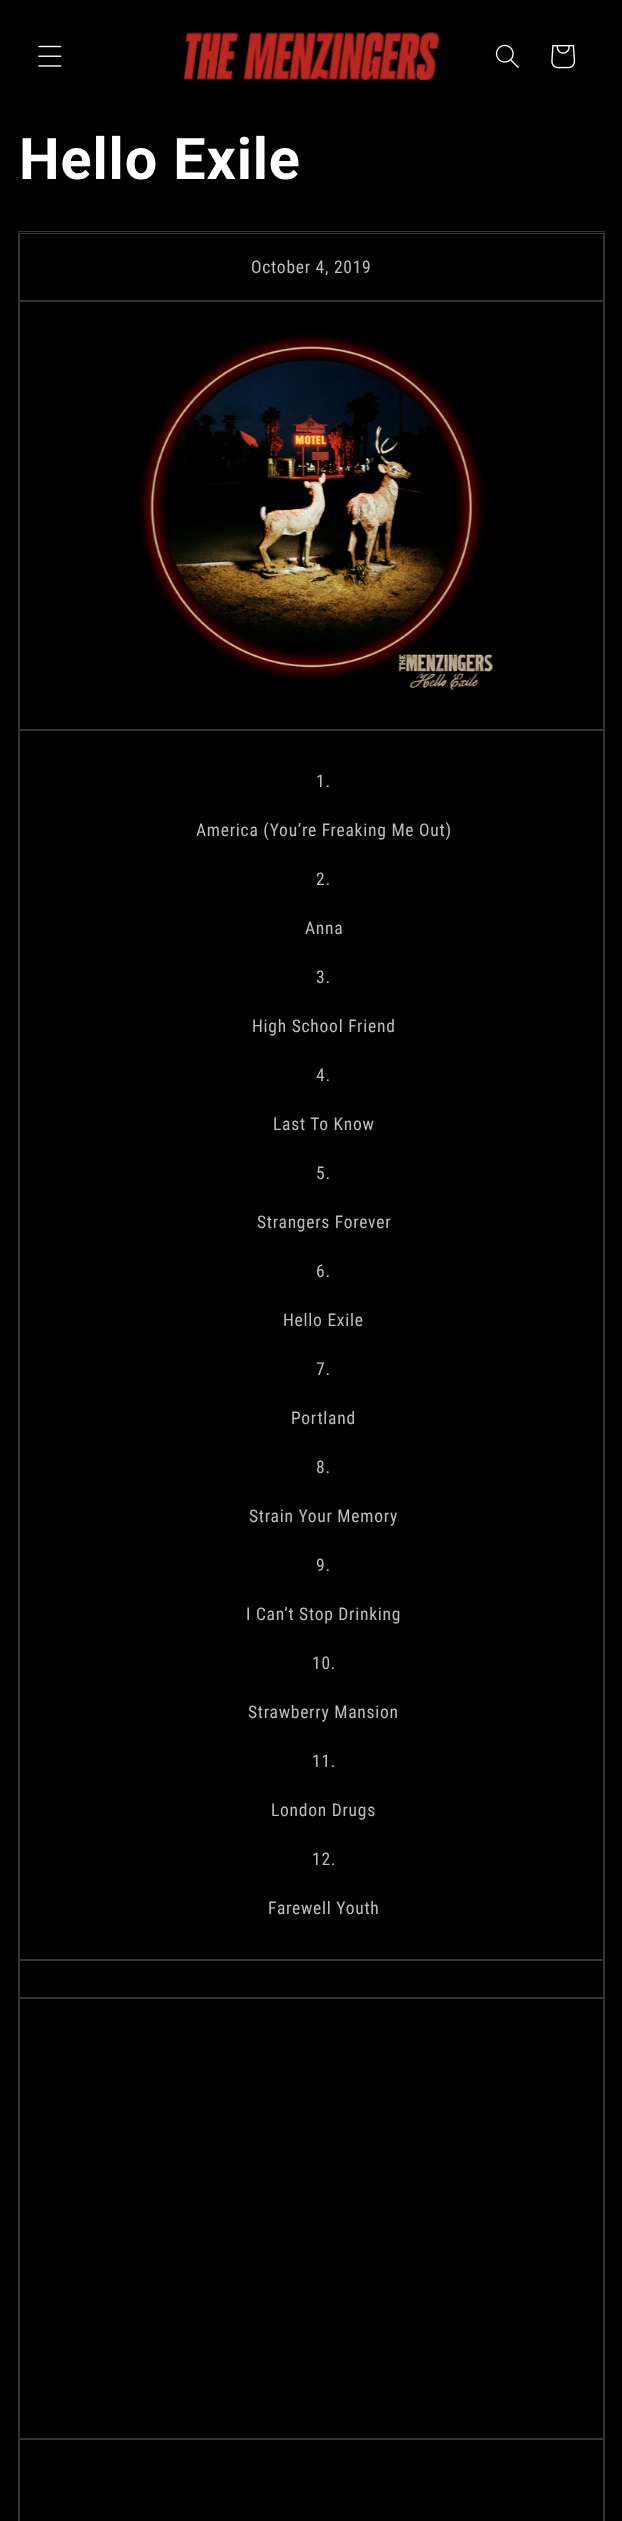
<!DOCTYPE html>
<meta charset="utf-8">
<style>body { margin: 0 } canvas { display: block }</style>
<canvas id="canvas" width="622" height="2521"></canvas>
<script type="module">
  const canvas = document.getElementById("canvas");
  const g = canvas.getContext("2d");
  g.miterLimit = 4;
  g.fontKerning = "normal";
  function drawText(s, x, y, [font, color]) {
    g.font = font;
    g.fillStyle = color;
    g.fillText(s, x, y);
  }
  function fillBox(x, y, w, h, color) {
    g.fillStyle = color;
    g.fillRect(x, y, w, h);
  }
  async function drawPicture(src, x, y, w, h) {
    const img = new Image();
    img.src = src;
    await img.decode();
    g.drawImage(img, x, y, w, h);
  }

  const s1 = ["bold 57.5px Roboto", "#FFFFFF"];
  const s2 = ["17.5px Roboto Condensed", "#BFBFBF"];

  fillBox(0, 0, 622, 2521, "#000000");
  await drawPicture("pic1.png", 38, 45, 24, 22);
  await drawPicture("pic2.png", 183, 32, 256, 48);
  await drawPicture("pic3.png", 495, 44, 24, 24);
  await drawPicture("pic4.png", 551, 45, 25, 24);
  g.letterSpacing = "0.9px";
  drawText("Hello Exile", 19, 179, s1);
  g.strokeStyle = "#333333";
  g.strokeRect(18.5, 231.5, 586, 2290);
  g.strokeRect(19.5, 233.5, 584, 67);
  g.letterSpacing = "0.75px";
  drawText("October 4, 2019", 251, 273, s2);
  g.strokeRect(19.5, 301.5, 584, 428);
  await drawPicture("pic5.png", 138, 334, 355, 361);
  g.strokeRect(19.5, 730.5, 584, 1229);
  drawText("1.", 316, 787, s2);
  drawText("America (You’re Freaking Me Out)", 196, 836, s2);
  drawText("2.", 316, 885, s2);
  drawText("Anna", 305, 934, s2);
  drawText("3.", 316, 983, s2);
  drawText("High School Friend", 252, 1032, s2);
  drawText("4.", 316, 1081, s2);
  drawText("Last To Know", 273, 1130, s2);
  drawText("5.", 316, 1179, s2);
  drawText("Strangers Forever", 257, 1228, s2);
  drawText("6.", 316, 1277, s2);
  drawText("Hello Exile", 283, 1326, s2);
  drawText("7.", 316, 1375, s2);
  drawText("Portland", 291, 1424, s2);
  drawText("8.", 316, 1473, s2);
  drawText("Strain Your Memory", 249, 1522, s2);
  drawText("9.", 316, 1571, s2);
  drawText("I Can’t Stop Drinking", 246, 1620, s2);
  drawText("10.", 312, 1669, s2);
  drawText("Strawberry Mansion", 248, 1718, s2);
  drawText("11.", 312, 1767, s2);
  drawText("London Drugs", 271, 1816, s2);
  drawText("12.", 312, 1865, s2);
  drawText("Farewell Youth", 268, 1914, s2);
  g.strokeRect(19.5, 1960.5, 584, 37);
  g.strokeRect(19.5, 1998.5, 584, 440);
  g.strokeRect(19.5, 2439.5, 584, 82);
</script>
